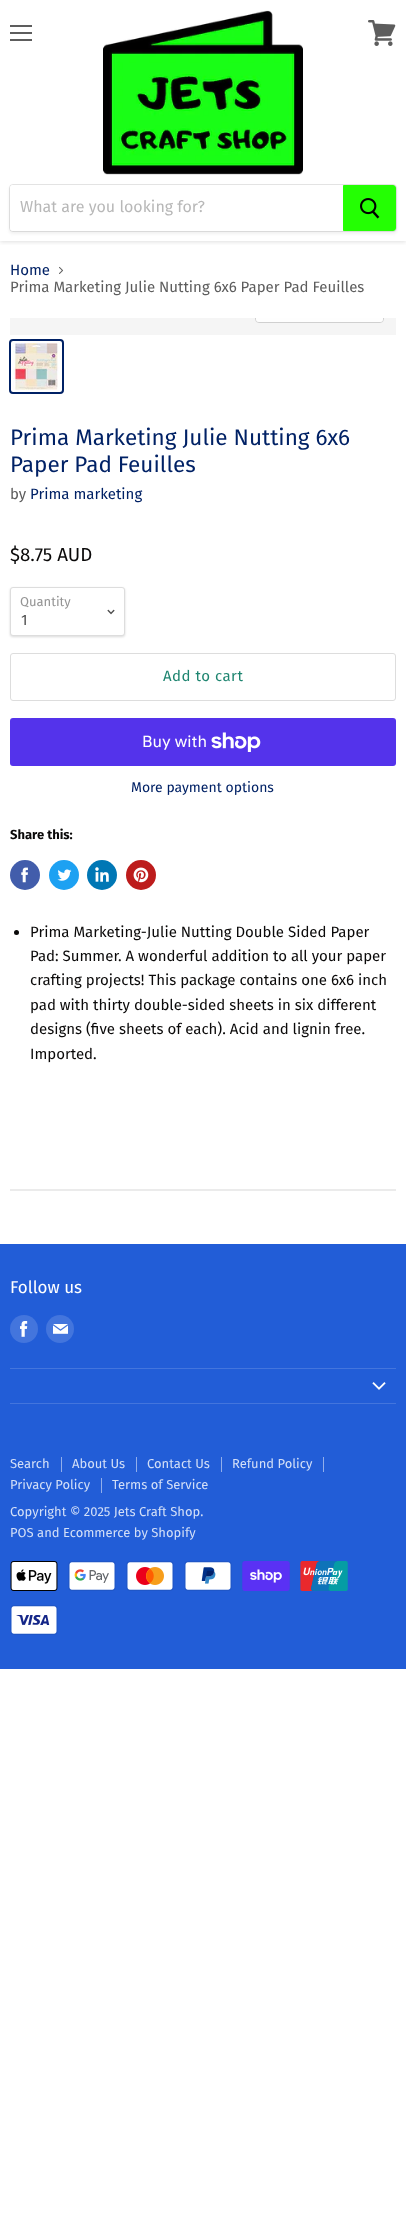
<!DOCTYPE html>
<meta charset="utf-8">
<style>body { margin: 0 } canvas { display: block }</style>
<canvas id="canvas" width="406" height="2224"></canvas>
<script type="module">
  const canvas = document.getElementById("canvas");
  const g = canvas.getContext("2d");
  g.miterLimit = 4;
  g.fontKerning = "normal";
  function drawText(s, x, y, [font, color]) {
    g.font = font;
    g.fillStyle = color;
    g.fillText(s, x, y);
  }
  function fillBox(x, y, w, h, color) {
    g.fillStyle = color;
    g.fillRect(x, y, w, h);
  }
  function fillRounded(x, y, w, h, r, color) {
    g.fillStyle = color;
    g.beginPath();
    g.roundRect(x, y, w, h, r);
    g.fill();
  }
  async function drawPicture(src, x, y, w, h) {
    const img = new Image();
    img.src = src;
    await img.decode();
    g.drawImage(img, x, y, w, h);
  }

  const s1 = ["16px Fira Sans", "#B8B8B8"];
  const s2 = ["15px Fira Sans", "#002165"];
  const s3 = ["15px Fira Sans", "#5D5D5D"];
  const s4 = ["22.5px Fira Sans", "#002165"];
  const s5 = ["18.75px Fira Sans", "#0A0909"];
  const s6 = ["13px Fira Sans", "#949494"];
  const s7 = ["15px Fira Sans", "#4D4D4D"];
  const s8 = ["15px Fira Sans", "#1E8570"];
  const s9 = ["16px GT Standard", "#FFFFFF"];
  const s10 = ["14px Fira Sans", "#002165"];
  const s11 = ["bold 13px Fira Sans", "#0A0909"];
  const s12 = ["15px Fira Sans", "#0A0909"];
  const s13 = ["17px Fira Sans", "#FFFFFF"];
  const s14 = ["13px Fira Sans", "#D3DFF7"];

  fillBox(0, 0, 406, 2224, "#FFFFFF");
  g.save();
  g.beginPath();
  g.rect(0, 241, 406, 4);
  g.clip();
  g.fillStyle = "rgba(127, 127, 127, 0.25)";
  g.filter = "blur(2px)";
  g.beginPath();
  g.rect(0, 1, 406, 241);
  g.fill();
  g.filter = "none";
  g.restore();
  fillBox(10, 25, 22, 2, "#5D5D5D");
  fillBox(10, 32, 22, 2, "#5D5D5D");
  fillBox(10, 39, 22, 2, "#5D5D5D");
  await drawPicture("pic1.png", 368, 20, 28, 26);
  await drawPicture("pic2.png", 103, 10, 200, 165);
  g.fillStyle = "rgba(127, 127, 127, 0.11)";
  g.filter = "blur(1.5px)";
  g.beginPath();
  g.roundRect(9, 186, 388, 48, 4);
  g.fill();
  g.filter = "none";
  g.beginPath();
  g.roundRect(9.5, 184.5, 387, 47, 3.5);
  g.strokeStyle = "rgba(127, 127, 127, 0.2)";
  g.stroke();
  g.fillStyle = "#FFFFFF";
  g.beginPath();
  g.roundRect(10, 185, 333, 46, [3, 0, 0, 3]);
  g.fill();
  drawText("What are you looking for?", 20, 212, s1);
  g.fillStyle = "#24FF03";
  g.beginPath();
  g.roundRect(343.5, 185.5, 52, 45, [0, 2.5, 2.5, 0]);
  g.fill();
  g.strokeStyle = "#24FF03";
  g.stroke();
  await drawPicture("pic3.png", 360, 198, 20, 21);
  drawText("Home", 10, 275, s2);
  await drawPicture("pic4.png", 59, 266, 5, 8);
  drawText("Prima Marketing Julie Nutting 6x6 Paper Pad Feuilles", 10, 292, s3);
  fillBox(10, 318, 386, 17, "#F5F5F5");
  g.save();
  g.beginPath();
  g.rect(10, 318, 386, 17);
  g.clip();
  g.beginPath();
  g.roundRect(255.5, 294.5, 128, 28, 3.5);
  g.strokeStyle = "#D0D0D0";
  g.stroke();
  g.restore();
  g.fillStyle = "rgba(255, 255, 255, 0.9)";
  g.beginPath();
  g.roundRect(256, 318, 127, 4, [0, 0, 3, 3]);
  g.fill();
  g.beginPath();
  g.roundRect(10, 340, 53, 53, 3);
  g.strokeStyle = "#002165";
  g.lineWidth = 2;
  g.stroke();
  await drawPicture("pic5.png", 13, 343, 47, 47);
  drawText("Prima Marketing Julie Nutting 6x6", 10, 445, s4);
  drawText("Paper Pad Feuilles", 10, 472, s4);
  drawText("by", 10, 499, s3);
  drawText("Prima marketing", 30, 499, s2);
  drawText("$8.75 AUD", 10, 561, s5);
  g.fillStyle = "rgba(0, 0, 0, 0.15)";
  g.filter = "blur(1px)";
  g.beginPath();
  g.roundRect(10, 588, 115, 49, 3);
  g.fill();
  g.filter = "none";
  g.fillStyle = "#FFFFFF";
  g.beginPath();
  g.roundRect(10.5, 587.5, 114, 48, 2.5);
  g.fill();
  g.strokeStyle = "#DDDDDD";
  g.lineWidth = 1;
  g.stroke();
  drawText("Quantity", 20, 606, s6);
  await drawPicture("pic6.png", 107, 609, 8, 6);
  drawText("1", 21, 625, s7);
  g.beginPath();
  g.roundRect(10.5, 653.5, 385, 47, 2.5);
  g.stroke();
  g.letterSpacing = "0.5px";
  drawText("Add to cart", 163, 681, s8);
  fillRounded(10, 718, 386, 48, 3, "#5433EB");
  g.letterSpacing = "0px";
  drawText("Buy with", 142, 747, s9);
  await drawPicture("pic7.png", 211, 732, 50, 20);
  drawText("More payment options", 131, 792, s10);
  drawText("Share this:", 10, 839, s11);
  g.fillStyle = "#425DAB";
  g.beginPath();
  g.arc(25, 875, 15, 0, Math.PI * 2);
  g.fill();
  await drawPicture("pic8.png", 21, 867, 7, 16);
  g.fillStyle = "#1DA1F2";
  g.beginPath();
  g.arc(64, 875, 15, 0, Math.PI * 2);
  g.fill();
  await drawPicture("pic9.png", 57, 869, 15, 12);
  g.fillStyle = "#0077B5";
  g.beginPath();
  g.arc(102, 875, 15, 0, Math.PI * 2);
  g.fill();
  await drawPicture("pic10.png", 95, 867, 14, 15);
  g.fillStyle = "#BD1C1C";
  g.beginPath();
  g.arc(141, 875, 15, 0, Math.PI * 2);
  g.fill();
  await drawPicture("pic11.png", 133, 867, 16, 16);
  g.fillStyle = "#0A0909";
  g.beginPath();
  g.arc(16.5, 932.5, 2.5, 0, Math.PI * 2);
  g.fill();
  drawText("Prima Marketing-Julie Nutting Double Sided Paper", 30, 937, s12);
  drawText("Pad: Summer. A wonderful addition to all your paper", 30, 961, s12);
  drawText("crafting projects! This package contains one 6x6 inch", 30, 985, s12);
  drawText("pad with thirty double-sided sheets in six different", 30, 1010, s12);
  drawText("designs (five sheets of each). Acid and lignin free.", 30, 1034, s12);
  drawText("Imported.", 30, 1059, s12);
  fillBox(10, 1189, 386, 2, "#EBEBEB");
  fillBox(0, 1244, 406, 425, "#225DD7");
  fillBox(10, 1368, 386, 1, "#4375DD");
  drawText("Follow us", 10, 1293, s13);
  g.fillStyle = "#4375DD";
  g.beginPath();
  g.arc(24, 1329, 14, 0, Math.PI * 2);
  g.fill();
  await drawPicture("pic12.png", 20, 1321, 8, 16);
  g.beginPath();
  g.arc(60, 1329, 14, 0, Math.PI * 2);
  g.fill();
  await drawPicture("pic13.png", 53, 1324, 15, 10);
  fillBox(10, 1403, 386, 1, "#4375DD");
  await drawPicture("pic14.png", 372, 1382, 14, 8);
  fillBox(61, 1457, 1, 15, "#91AEEB");
  drawText("Search", 10, 1468, s14);
  fillBox(136, 1457, 1, 15, "#91AEEB");
  drawText("About Us", 72, 1468, s14);
  fillBox(221, 1457, 1, 15, "#91AEEB");
  drawText("Contact Us", 147, 1468, s14);
  fillBox(323, 1457, 1, 15, "#91AEEB");
  drawText("Refund Policy", 232, 1468, s14);
  fillBox(101, 1478, 1, 15, "#91AEEB");
  drawText("Privacy Policy", 10, 1489, s14);
  drawText("Terms of Service", 112, 1489, s14);
  drawText("Copyright © 2025 Jets Craft Shop.", 10, 1516, s14);
  drawText("POS and Ecommerce by Shopify", 10, 1537, s14);
  await drawPicture("pic15.png", 10, 1561, 48, 30);
  await drawPicture("pic16.png", 68, 1561, 48, 30);
  await drawPicture("pic17.png", 126, 1561, 48, 30);
  await drawPicture("pic18.png", 184, 1561, 48, 30);
  await drawPicture("pic19.png", 242, 1561, 48, 30);
  await drawPicture("pic20.png", 300, 1561, 48, 30);
  await drawPicture("pic21.png", 10, 1605, 48, 30);
</script>
